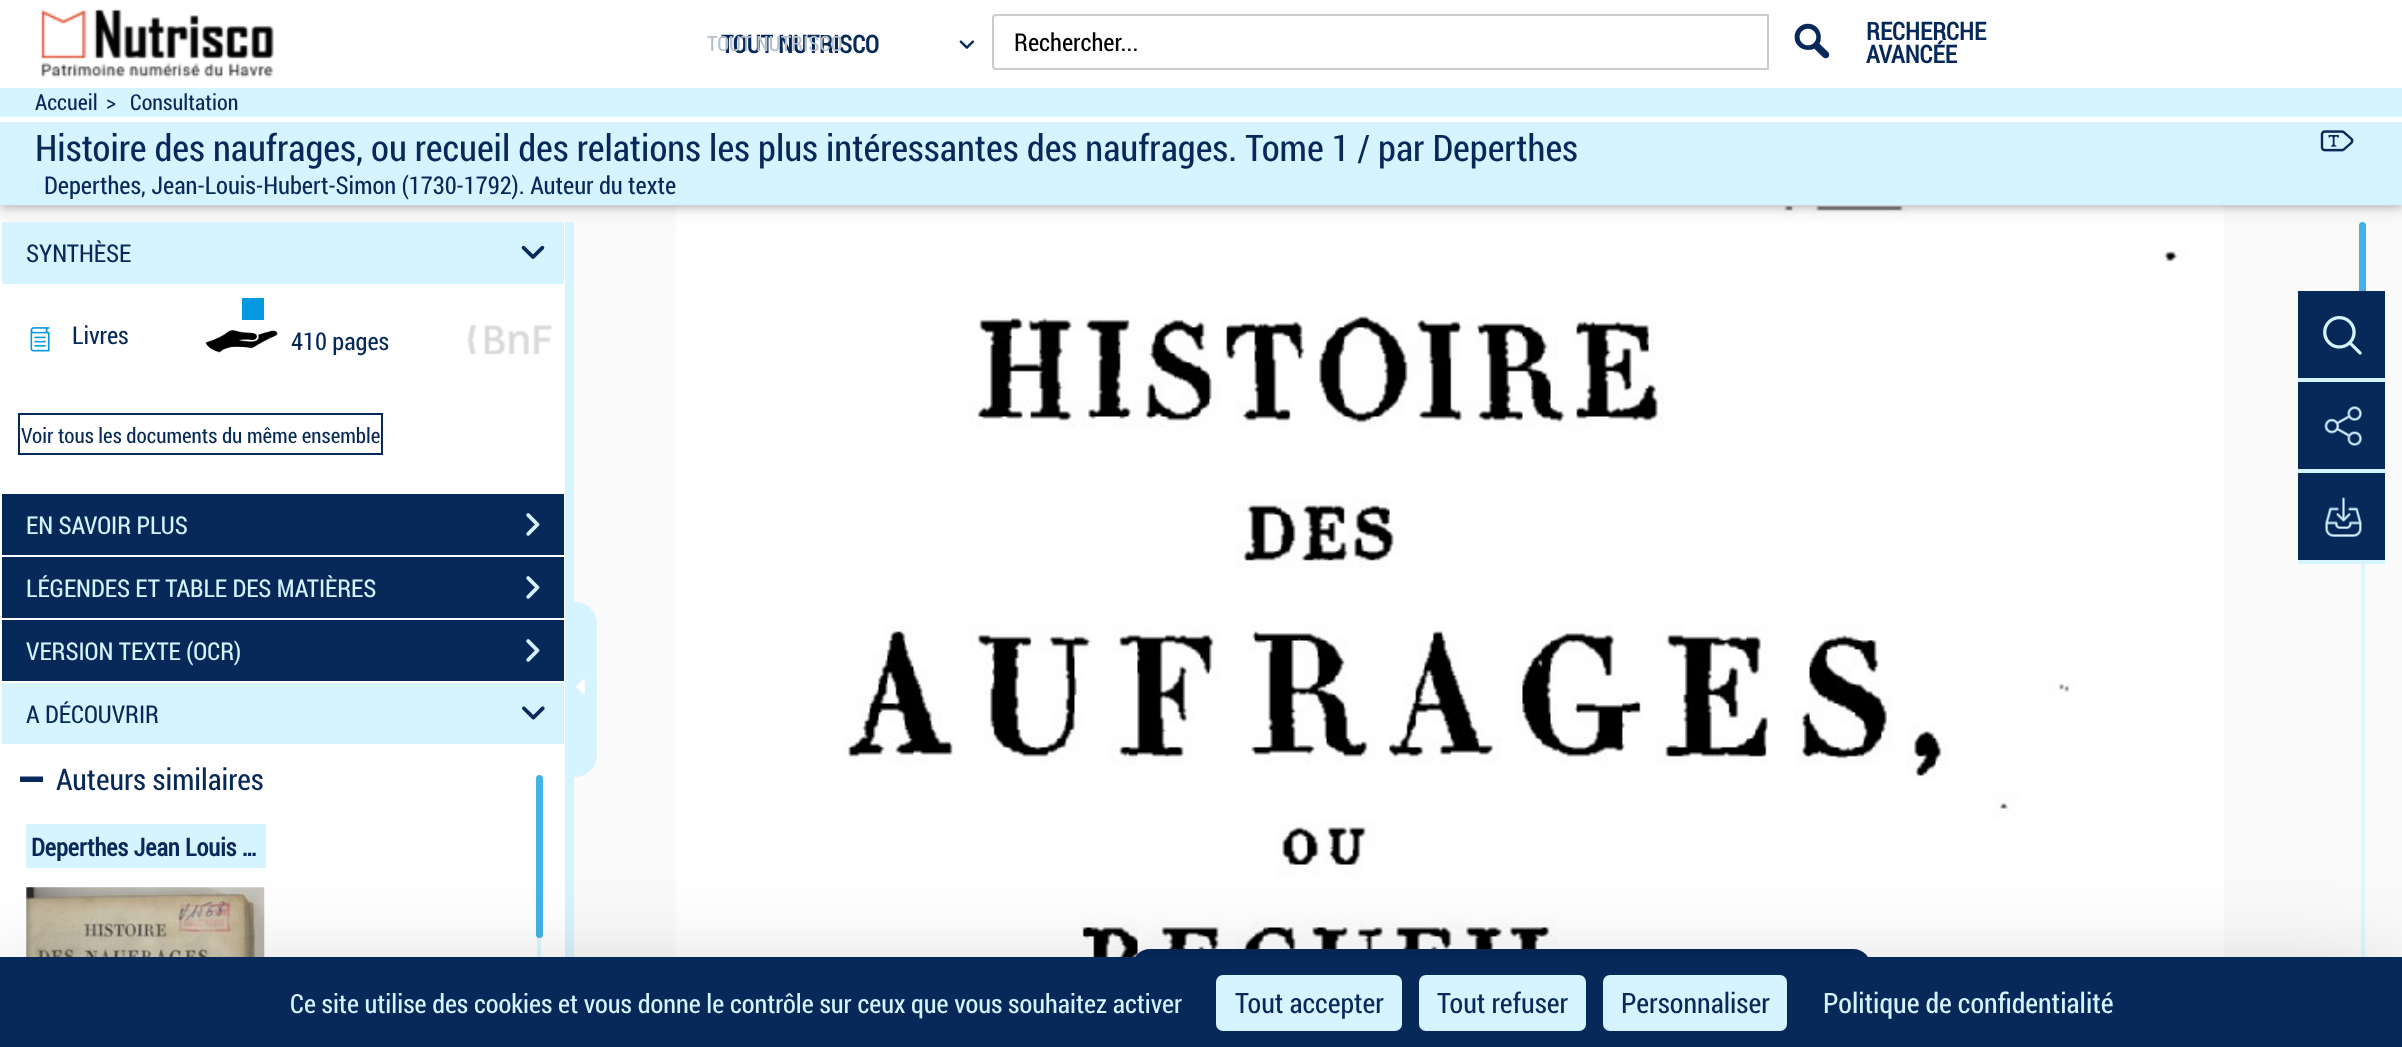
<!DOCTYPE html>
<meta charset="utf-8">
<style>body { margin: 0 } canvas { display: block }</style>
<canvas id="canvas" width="2402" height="1047"></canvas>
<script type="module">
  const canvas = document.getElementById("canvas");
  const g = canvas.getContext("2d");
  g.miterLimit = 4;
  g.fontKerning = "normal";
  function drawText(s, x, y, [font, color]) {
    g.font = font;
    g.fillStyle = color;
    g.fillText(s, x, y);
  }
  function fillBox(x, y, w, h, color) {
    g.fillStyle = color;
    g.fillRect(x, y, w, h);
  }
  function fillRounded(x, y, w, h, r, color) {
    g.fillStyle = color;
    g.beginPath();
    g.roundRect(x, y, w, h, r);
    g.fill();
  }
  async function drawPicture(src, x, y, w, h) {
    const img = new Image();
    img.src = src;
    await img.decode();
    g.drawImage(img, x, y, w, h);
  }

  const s1 = ["bold 24.5px Roboto Condensed", "#06295A"];
  const s2 = ["21px Roboto Condensed", "#B5BFCE"];
  const s3 = ["24.5px Roboto Condensed", "#000000"];
  const s4 = ["22px Roboto Condensed", "#06295A"];
  const s5 = ["36.75px Roboto Condensed", "#06295A"];
  const s6 = ["24.5px Roboto Condensed", "#06295A"];
  const s7 = ["21px Roboto Condensed", "#06295A"];
  const s8 = ["24.5px Roboto Condensed", "#D6F4FF"];
  const s9 = ["29.75px Roboto Condensed", "#06295A"];
  const s10 = ["26.25px Roboto Condensed", "#D6F4FF"];
  const s11 = ["28px Roboto Condensed", "#06295A"];
  const s12 = ["28px Roboto Condensed", "#D6F4FF"];

  fillBox(0, 0, 2402, 1047, "#FAFAFA");
  await drawPicture("pic13.png", 676, 205, 1548, 752);
  fillRounded(2361, 222, 4, 809, 2, "#DFF6FE");
  fillRounded(2359, 222, 7, 249, 3.5, "#42B1E6");
  g.fillStyle = "rgba(0, 0, 0, 0.12)";
  g.filter = "blur(9px)";
  g.beginPath();
  g.rect(0, 91, 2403, 117);
  g.fill();
  g.filter = "none";
  g.fillStyle = "rgba(0, 0, 0, 0.16)";
  g.filter = "blur(3.5px)";
  g.beginPath();
  g.rect(0, 91, 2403, 117);
  g.fill();
  g.filter = "none";
  fillBox(0, 0, 2402, 88, "#FFFFFF");
  await drawPicture("pic1.png", 41, 8, 233, 70);
  drawText("TOUT NUTRISCO", 721, 53, s1);
  drawText("TOUT NUTRISCO", 707, 51, s2);
  await drawPicture("pic2.png", 959, 40, 16, 9);
  g.beginPath();
  g.roundRect(993, 15, 775, 54, [3, 0, 0, 3]);
  g.strokeStyle = "#CCCCCC";
  g.lineWidth = 2;
  g.stroke();
  drawText("Rechercher...", 1014, 51, s3);
  await drawPicture("pic3.png", 1794, 23, 36, 36);
  drawText("RECHERCHE", 1866, 40, s1);
  drawText("AVANCÉE", 1866, 63, s1);
  fillBox(0, 88, 2402, 117, "#D6F4FF");
  fillBox(0, 117, 2402, 5, "#FFFFFF");
  drawText("Accueil", 35, 110, s4);
  drawText(">", 106, 110, s4);
  drawText("Consultation", 130, 110, s4);
  drawText("Histoire des naufrages, ou recueil des relations les plus intéressantes des naufrages. Tome 1 / par Deperthes", 35, 161, s5);
  drawText("Deperthes, Jean-Louis-Hubert-Simon (1730-1792). Auteur du texte", 44, 194, s6);
  await drawPicture("pic4.png", 2320, 130, 34, 22);
  fillBox(565, 222, 9, 735, "#D6F4FF");
  fillBox(0, 222, 565, 735, "#FFFFFF");
  fillBox(2, 222, 562, 62, "#D6F4FF");
  drawText("SYNTHÈSE", 26, 262, s6);
  await drawPicture("pic5.png", 521, 245, 24, 14);
  await drawPicture("pic6.png", 30, 327, 20, 25);
  drawText("Livres", 72, 344, s6);
  fillBox(242, 298, 22, 22, "#0499DF");
  await drawPicture("pic7.png", 205, 330, 73, 23);
  drawText("410 pages", 291, 350, s6);
  await drawPicture("pic8.png", 467, 325, 85, 30);
  g.strokeStyle = "#06295A";
  g.strokeRect(19, 414, 363, 40);
  drawText("Voir tous les documents du même ensemble", 21, 443, s7);
  fillBox(2, 494, 562, 61, "#06295A");
  drawText("EN SAVOIR PLUS", 26, 534, s8);
  await drawPicture("pic9.png", 526, 513, 14, 23);
  fillBox(2, 557, 562, 61, "#06295A");
  drawText("LÉGENDES ET TABLE DES MATIÈRES", 26, 597, s8);
  await drawPicture("pic9.png", 526, 576, 14, 23);
  fillBox(2, 620, 562, 61, "#06295A");
  drawText("VERSION TEXTE (OCR)", 26, 660, s8);
  await drawPicture("pic9.png", 526, 639, 14, 23);
  fillBox(2, 683, 562, 61, "#D6F4FF");
  drawText("A DÉCOUVRIR", 26, 723, s6);
  await drawPicture("pic10.png", 522, 706, 23, 14);
  drawText("Auteurs similaires", 56, 790, s9);
  g.beginPath();
  g.moveTo(28.5, 782);
  g.lineTo(20, 782);
  g.lineTo(20, 776.5);
  g.lineTo(43, 776.5);
  g.lineTo(43, 782);
  g.closePath();
  g.fill();
  fillBox(26, 824, 240, 44, "#D6F4FF");
  drawText("Deperthes Jean Louis …", 31, 856, s1);
  await drawPicture("pic11.png", 26, 887, 239, 70);
  fillRounded(537, 775, 4, 245, 2, "#E0F7FF");
  fillRounded(536, 775, 7, 163, 3.5, "#43B3E7");
  g.fillStyle = "#D6F4FF";
  g.beginPath();
  g.roundRect(575, 603, 21, 173, [0, 22, 22, 0]);
  g.fill();
  g.strokeStyle = "#D6F4FF";
  g.stroke();
  await drawPicture("pic12.png", 576, 679, 9, 16);
  fillBox(2298, 291, 87, 87, "#06295A");
  await drawPicture("pic14.png", 2323, 316, 39, 39);
  fillBox(2298, 378, 87, 4, "#D6F4FF");
  fillBox(2298, 382, 87, 87, "#06295A");
  await drawPicture("pic15.png", 2324, 406, 38, 40);
  fillBox(2298, 469, 87, 4, "#D6F4FF");
  fillBox(2298, 473, 87, 87, "#06295A");
  await drawPicture("pic16.png", 2325, 497, 37, 40);
  fillBox(2298, 560, 87, 4, "#D6F4FF");
  g.fillStyle = "#06295A";
  g.beginPath();
  g.moveTo(1150, 949);
  g.lineTo(1853, 949);
  g.bezierCurveTo(1863, 949, 1871, 957, 1871, 967);
  g.lineTo(1871, 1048);
  g.lineTo(1132, 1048);
  g.lineTo(1132, 967);
  g.bezierCurveTo(1132, 957, 1140, 949, 1150, 949);
  g.closePath();
  g.fill();
  g.fillStyle = "rgba(0, 0, 0, 0.25)";
  g.filter = "blur(52.5px)";
  g.beginPath();
  g.rect(0, 992, 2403, 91);
  g.fill();
  g.filter = "none";
  fillBox(0, 957, 2402, 90, "#06295A");
  drawText("Ce site utilise des cookies et vous donne le contrôle sur ceux que vous souhaitez activer", 290, 1013, s10);
  fillRounded(1216, 975, 186, 56, 7, "#D6F4FF");
  drawText("Tout accepter", 1235, 1013, s11);
  fillRounded(1419, 975, 167, 56, 7, "#D6F4FF");
  drawText("Tout refuser", 1437, 1013, s11);
  fillRounded(1603, 975, 184, 56, 7, "#D6F4FF");
  drawText("Personnaliser", 1621, 1013, s11);
  drawText("Politique de confidentialité", 1823, 1013, s12);
</script>
